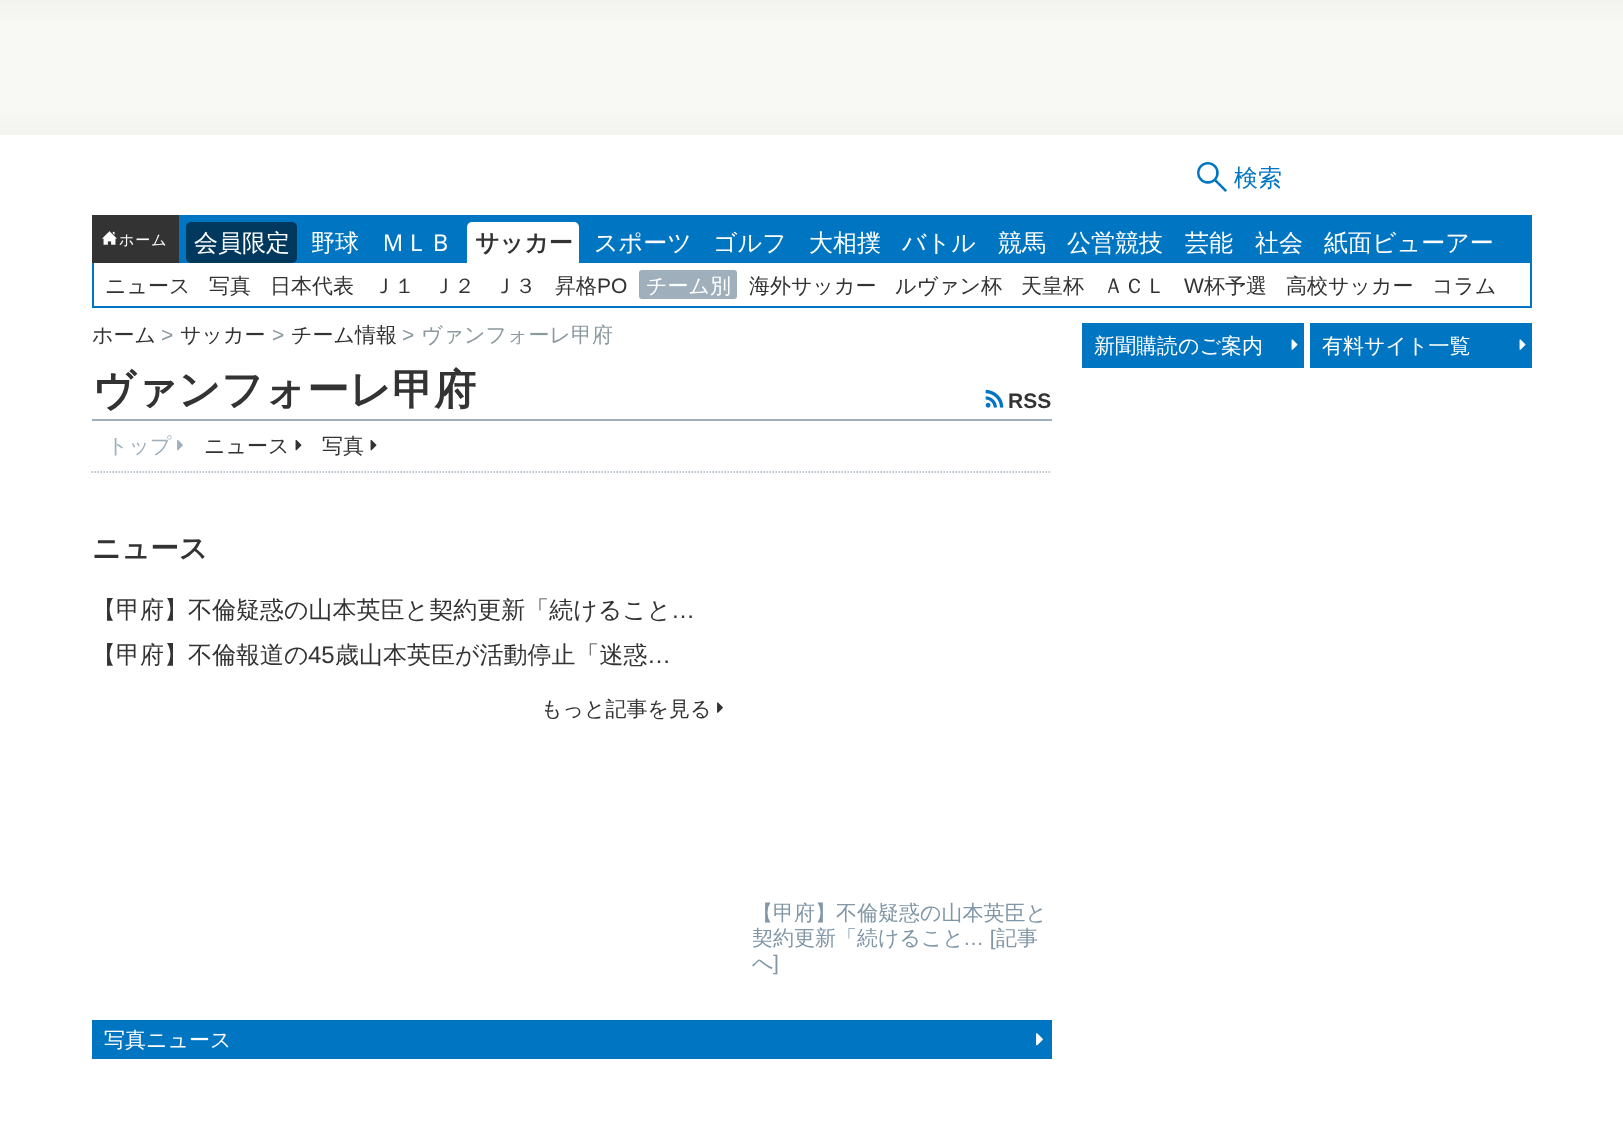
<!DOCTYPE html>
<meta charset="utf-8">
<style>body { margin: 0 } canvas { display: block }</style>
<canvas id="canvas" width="1623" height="1134"></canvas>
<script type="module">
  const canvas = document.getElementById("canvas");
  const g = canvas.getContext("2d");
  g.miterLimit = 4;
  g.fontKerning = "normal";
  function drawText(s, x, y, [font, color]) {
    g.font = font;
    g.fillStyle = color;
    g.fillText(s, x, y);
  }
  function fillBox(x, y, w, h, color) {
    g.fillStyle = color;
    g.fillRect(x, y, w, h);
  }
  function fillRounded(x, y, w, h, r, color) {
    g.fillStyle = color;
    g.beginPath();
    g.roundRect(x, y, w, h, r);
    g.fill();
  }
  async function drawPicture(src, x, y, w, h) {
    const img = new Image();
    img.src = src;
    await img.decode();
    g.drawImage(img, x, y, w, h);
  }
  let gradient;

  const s1 = ["500 24px WenQuanYi Zen Hei", "#0075C2"];
  const s2 = ["500 15px WenQuanYi Zen Hei", "#FFFFFF"];
  const s3 = ["500 24px WenQuanYi Zen Hei", "#FFFFFF"];
  const s4 = ["bold 24px WenQuanYi Zen Hei", "#333333"];
  const s5 = ["500 21px WenQuanYi Zen Hei", "#333333"];
  const s6 = ["21px Liberation Sans", "#333333"];
  const s7 = ["500 21px WenQuanYi Zen Hei", "#FFFFFF"];
  const s8 = ["21px Liberation Sans", "#8B9A9E"];
  const s9 = ["500 21px WenQuanYi Zen Hei", "#8B9A9E"];
  const s10 = ["bold 42px WenQuanYi Zen Hei", "#333333"];
  const s11 = ["bold 21px Liberation Sans", "#333333"];
  const s12 = ["500 21px WenQuanYi Zen Hei", "#9FB0BC"];
  const s13 = ["bold 28.5px WenQuanYi Zen Hei", "#333333"];
  const s14 = ["500 24px WenQuanYi Zen Hei", "#333333"];
  const s15 = ["24px Liberation Sans", "#333333"];
  const s16 = ["500 21px WenQuanYi Zen Hei", "#8197A7"];
  const s17 = ["21px Liberation Sans", "#8197A7"];

  fillBox(0, 0, 1623, 1134, "#FFFFFF");
  gradient = g.createLinearGradient(812, 0, 812, 135);
  gradient.addColorStop(0, "#F3F3F0");
  gradient.addColorStop(0.2, "#F8F8F5");
  gradient.addColorStop(0.8, "#F8F8F5");
  gradient.addColorStop(1, "#F3F3F0");
  g.fillStyle = gradient;
  g.fillRect(0, 0, 1623, 135);
  await drawPicture("pic1.png", 1197, 162, 30, 30);
  drawText("検索", 1234, 186, s1);
  fillBox(179, 215, 1353, 48, "#0075C2");
  fillBox(92, 215, 87, 48, "#333333");
  await drawPicture("pic2.png", 102, 231, 15, 14);
  g.letterSpacing = "1px";
  drawText("ホーム", 119, 245, s2);
  fillRounded(186, 222, 111, 41, 5, "#00385E");
  g.letterSpacing = "0px";
  drawText("会員限定", 194, 251, s3);
  drawText("野球", 311, 251, s3);
  drawText("ＭＬＢ", 381, 251, s3);
  g.beginPath();
  g.roundRect(467, 222, 112, 41, [5, 5, 0, 0]);
  g.fill();
  drawText("サッカー", 475, 251, s4);
  drawText("スポーツ", 594, 251, s3);
  drawText("ゴルフ", 713, 251, s3);
  drawText("大相撲", 809, 251, s3);
  drawText("バトル", 902, 251, s3);
  drawText("競馬", 998, 251, s3);
  drawText("公営競技", 1067, 251, s3);
  drawText("芸能", 1185, 251, s3);
  drawText("社会", 1255, 251, s3);
  drawText("紙面ビューアー", 1324, 251, s3);
  fillBox(1530, 263, 2, 45, "#0075C2");
  fillBox(92, 306, 1440, 2, "#0075C2");
  fillBox(92, 263, 2, 45, "#0075C2");
  drawText("ニュース", 105, 293, s5);
  drawText("写真", 209, 293, s5);
  drawText("日本代表", 270, 293, s5);
  drawText("Ｊ１", 373, 293, s5);
  drawText("Ｊ２", 433, 293, s5);
  drawText("Ｊ３", 494, 293, s5);
  drawText("昇格", 555, 293, s5);
  drawText("PO", 597, 293, s6);
  fillRounded(639, 270, 98, 29, 3, "#9FB0BC");
  drawText("チーム別", 646, 293, s7);
  drawText("海外サッカー", 749, 293, s5);
  drawText("ルヴァン杯", 895, 293, s5);
  drawText("天皇杯", 1021, 293, s5);
  drawText("ＡＣＬ", 1103, 293, s5);
  drawText("W", 1184, 293, s6);
  drawText("杯予選", 1204, 293, s5);
  drawText("高校サッカー", 1286, 293, s5);
  drawText("コラム", 1432, 293, s5);
  drawText("ホーム", 92, 342, s5);
  drawText(">", 161, 342, s8);
  drawText("サッカー", 180, 342, s5);
  drawText(">", 272, 342, s8);
  drawText("チーム情報", 291, 342, s5);
  drawText(">", 402, 342, s8);
  drawText("ヴァンフォーレ甲府", 421, 342, s9);
  fillBox(92, 419, 960, 2, "#9FB0BC");
  drawText("ヴァンフォーレ甲府", 92, 404, s10);
  await drawPicture("pic3.png", 985, 389, 19, 19);
  drawText("RSS", 1008, 408, s11);
  g.beginPath();
  g.moveTo(91.5, 472);
  g.lineTo(1051.5, 472);
  g.strokeStyle = "#9FB0BC";
  g.lineWidth = 1.5;
  g.setLineDash([1.5, 1.5]);
  g.stroke();
  drawText("トップ", 107, 453, s12);
  await drawPicture("pic4.png", 177, 440, 6, 11);
  drawText("ニュース", 204, 453, s5);
  await drawPicture("pic5.png", 295, 439, 7, 12);
  drawText("写真", 322, 453, s5);
  await drawPicture("pic5.png", 370, 439, 7, 12);
  drawText("ニュース", 92, 558, s13);
  drawText("【甲府】不倫疑惑の山本英臣と契約更新「続けること", 92, 618, s14);
  drawText("…", 671, 618, s15);
  drawText("【甲府】不倫報道の", 92, 663, s14);
  drawText("45", 308, 663, s15);
  drawText("歳山本英臣が活動停止「迷惑", 335, 663, s14);
  drawText("…", 647, 663, s15);
  drawText("もっと記事を見る", 541, 716, s5);
  await drawPicture("pic6.png", 717, 702, 6, 11);
  drawText("【甲府】不倫疑惑の山本英臣と", 752, 920, s16);
  drawText("契約更新「続けること", 752, 945, s16);
  drawText("… [", 963, 945, s17);
  drawText("記事", 996, 945, s16);
  drawText("へ", 752, 970, s16);
  drawText("]", 773, 970, s17);
  fillBox(92, 1020, 960, 39, "#0075C2");
  drawText("写真ニュース", 104, 1047, s7);
  await drawPicture("pic7.png", 1036, 1033, 7, 13);
  fillBox(1082, 323, 222, 45, "#0075C2");
  drawText("新聞購読のご案内", 1094, 353, s7);
  await drawPicture("pic8.png", 1291, 339, 7, 11);
  fillBox(1310, 323, 222, 45, "#0075C2");
  drawText("有料サイト一覧", 1322, 353, s7);
  await drawPicture("pic8.png", 1519, 339, 7, 11);
</script>
